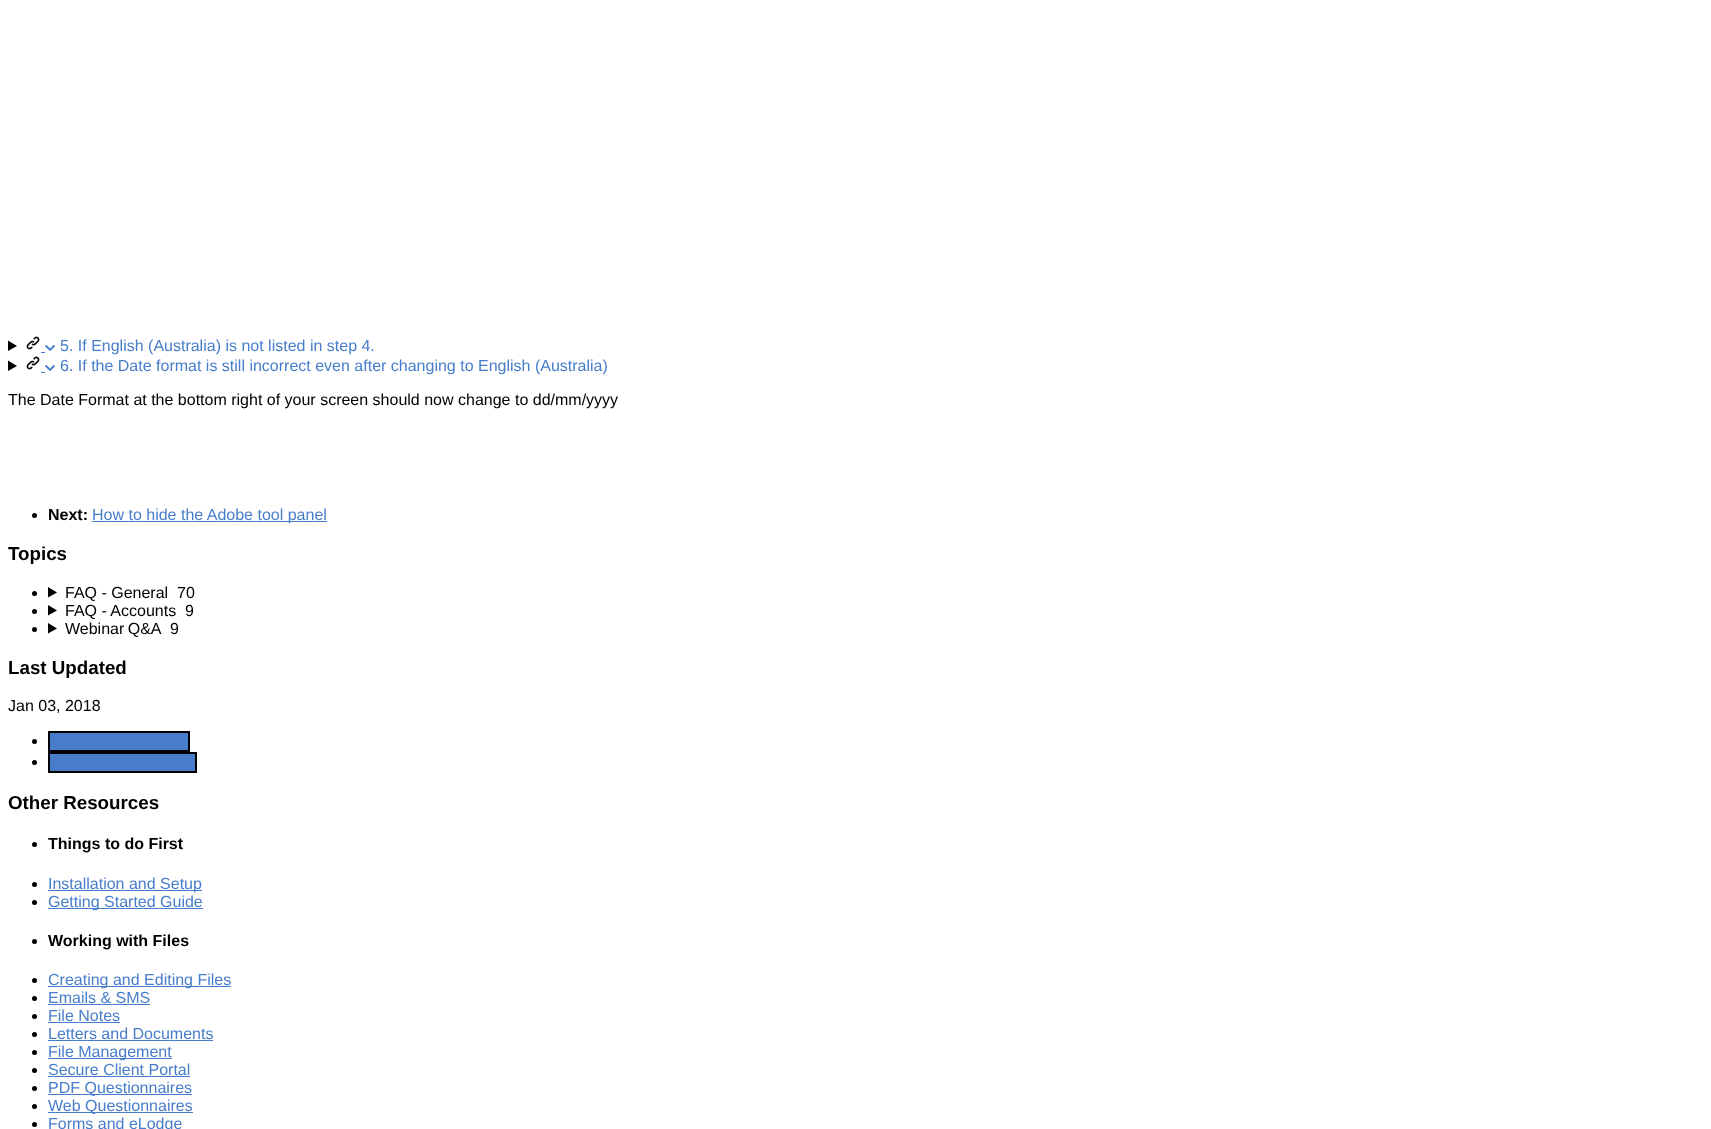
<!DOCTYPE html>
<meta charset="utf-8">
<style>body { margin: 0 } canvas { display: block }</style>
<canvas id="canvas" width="1711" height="1129"></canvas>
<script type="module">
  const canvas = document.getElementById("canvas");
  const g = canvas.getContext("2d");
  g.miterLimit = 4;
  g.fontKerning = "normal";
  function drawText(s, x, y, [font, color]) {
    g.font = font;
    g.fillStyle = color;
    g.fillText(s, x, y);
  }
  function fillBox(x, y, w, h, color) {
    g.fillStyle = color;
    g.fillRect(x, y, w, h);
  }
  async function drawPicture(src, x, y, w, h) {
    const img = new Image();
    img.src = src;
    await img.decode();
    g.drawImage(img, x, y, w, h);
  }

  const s1 = ["16px Liberation Sans", "#477DCA"];
  const s2 = ["16px Liberation Sans", "#000000"];
  const s3 = ["bold 16px Liberation Sans", "#000000"];
  const s4 = ["bold 18.75px Liberation Sans", "#000000"];

  fillBox(0, 0, 1711, 1129, "#FFFFFF");
  g.fillStyle = "#000000";
  g.beginPath();
  g.moveTo(8, 340.5);
  g.lineTo(17, 346);
  g.lineTo(8, 351);
  g.closePath();
  g.fill();
  await drawPicture("pic1.png", 26, 336, 14, 14);
  await drawPicture("pic2.png", 45, 345, 10, 6);
  drawText("5. If English (Australia) is not listed in step 4.", 60, 351, s1);
  fillBox(41, 352, 4, 1, "#477DCA");
  g.fillStyle = "#000000";
  g.beginPath();
  g.moveTo(8, 360.5);
  g.lineTo(17, 366);
  g.lineTo(8, 371);
  g.closePath();
  g.fill();
  await drawPicture("pic1.png", 26, 356, 14, 14);
  await drawPicture("pic2.png", 45, 365, 10, 6);
  drawText("6. If the Date format is still incorrect even after changing to English (Australia)", 60, 371, s1);
  fillBox(41, 372, 4, 1, "#477DCA");
  drawText("The Date Format at the bottom right of your screen should now change to dd/mm/yyyy", 8, 405, s2);
  g.beginPath();
  g.arc(34.5, 515.5, 2.5, 0, Math.PI * 2);
  g.fill();
  drawText("Next:", 48, 520, s3);
  fillBox(92, 521, 235, 1, "#477DCA");
  drawText("How to hide the Adobe tool panel", 92, 520, s1);
  drawText("Topics", 8, 560, s4);
  g.beginPath();
  g.arc(34.5, 593.5, 2.5, 0, Math.PI * 2);
  g.fill();
  g.beginPath();
  g.moveTo(48, 587);
  g.lineTo(57, 592.5);
  g.lineTo(48, 597.5);
  g.closePath();
  g.fill();
  drawText("FAQ - General", 65, 598, s2);
  drawText("70", 177, 598, s2);
  g.beginPath();
  g.arc(34.5, 611.5, 2.5, 0, Math.PI * 2);
  g.fill();
  g.beginPath();
  g.moveTo(48, 605);
  g.lineTo(57, 610.5);
  g.lineTo(48, 615.5);
  g.closePath();
  g.fill();
  drawText("FAQ - Accounts", 65, 616, s2);
  drawText("9", 185, 616, s2);
  g.beginPath();
  g.arc(34.5, 629.5, 2.5, 0, Math.PI * 2);
  g.fill();
  g.beginPath();
  g.moveTo(48, 623);
  g.lineTo(57, 628.5);
  g.lineTo(48, 633.5);
  g.closePath();
  g.fill();
  g.wordSpacing = "-1px";
  drawText("Webinar Q&A", 65, 634, s2);
  g.wordSpacing = "0px";
  drawText("9", 170, 634, s2);
  drawText("Last Updated", 8, 674, s4);
  drawText("Jan 03, 2018", 8, 711, s2);
  g.beginPath();
  g.arc(34.5, 741.5, 2.5, 0, Math.PI * 2);
  g.fill();
  g.fillStyle = "#477DCA";
  g.beginPath();
  g.rect(49, 732, 140, 19);
  g.fill();
  g.strokeStyle = "#000000";
  g.lineWidth = 2;
  g.stroke();
  g.fillStyle = "#000000";
  g.beginPath();
  g.arc(34.5, 762.5, 2.5, 0, Math.PI * 2);
  g.fill();
  g.fillStyle = "#477DCA";
  g.beginPath();
  g.rect(49, 753, 147, 19);
  g.fill();
  g.stroke();
  drawText("Other Resources", 8, 809, s4);
  g.beginPath();
  g.arc(34.5, 844.5, 2.5, 0, Math.PI * 2);
  g.fill();
  drawText("Things to do First", 48, 849, s3);
  g.beginPath();
  g.arc(34.5, 884.5, 2.5, 0, Math.PI * 2);
  g.fill();
  fillBox(48, 890, 154, 1, "#477DCA");
  drawText("Installation and Setup", 48, 889, s1);
  g.fillStyle = "#000000";
  g.beginPath();
  g.arc(34.5, 902.5, 2.5, 0, Math.PI * 2);
  g.fill();
  fillBox(48, 908, 155, 1, "#477DCA");
  drawText("Getting Started Guide", 48, 907, s1);
  g.fillStyle = "#000000";
  g.beginPath();
  g.arc(34.5, 941.5, 2.5, 0, Math.PI * 2);
  g.fill();
  drawText("Working with Files", 48, 946, s3);
  g.beginPath();
  g.arc(34.5, 980.5, 2.5, 0, Math.PI * 2);
  g.fill();
  fillBox(48, 986, 183, 1, "#477DCA");
  drawText("Creating and Editing Files", 48, 985, s1);
  g.fillStyle = "#000000";
  g.beginPath();
  g.arc(34.5, 998.5, 2.5, 0, Math.PI * 2);
  g.fill();
  drawText("Emails & SMS", 48, 1003, s1);
  fillBox(48, 1004, 102, 1, "#477DCA");
  g.fillStyle = "#000000";
  g.beginPath();
  g.arc(34.5, 1016.5, 2.5, 0, Math.PI * 2);
  g.fill();
  drawText("File Notes", 48, 1021, s1);
  fillBox(48, 1022, 72, 1, "#477DCA");
  g.fillStyle = "#000000";
  g.beginPath();
  g.arc(34.5, 1034.5, 2.5, 0, Math.PI * 2);
  g.fill();
  drawText("Letters and Documents", 48, 1039, s1);
  fillBox(48, 1040, 165, 1, "#477DCA");
  g.fillStyle = "#000000";
  g.beginPath();
  g.arc(34.5, 1052.5, 2.5, 0, Math.PI * 2);
  g.fill();
  fillBox(48, 1058, 124, 1, "#477DCA");
  drawText("File Management", 48, 1057, s1);
  g.fillStyle = "#000000";
  g.beginPath();
  g.arc(34.5, 1070.5, 2.5, 0, Math.PI * 2);
  g.fill();
  drawText("Secure Client Portal", 48, 1075, s1);
  fillBox(48, 1076, 142, 1, "#477DCA");
  g.fillStyle = "#000000";
  g.beginPath();
  g.arc(34.5, 1088.5, 2.5, 0, Math.PI * 2);
  g.fill();
  fillBox(48, 1094, 144, 1, "#477DCA");
  drawText("PDF Questionnaires", 48, 1093, s1);
  g.fillStyle = "#000000";
  g.beginPath();
  g.arc(34.5, 1106.5, 2.5, 0, Math.PI * 2);
  g.fill();
  fillBox(48, 1112, 145, 1, "#477DCA");
  drawText("Web Questionnaires", 48, 1111, s1);
  g.fillStyle = "#000000";
  g.beginPath();
  g.arc(34.5, 1124.5, 2.5, 0, Math.PI * 2);
  g.fill();
  drawText("Forms and eLodge", 48, 1129, s1);
</script>
